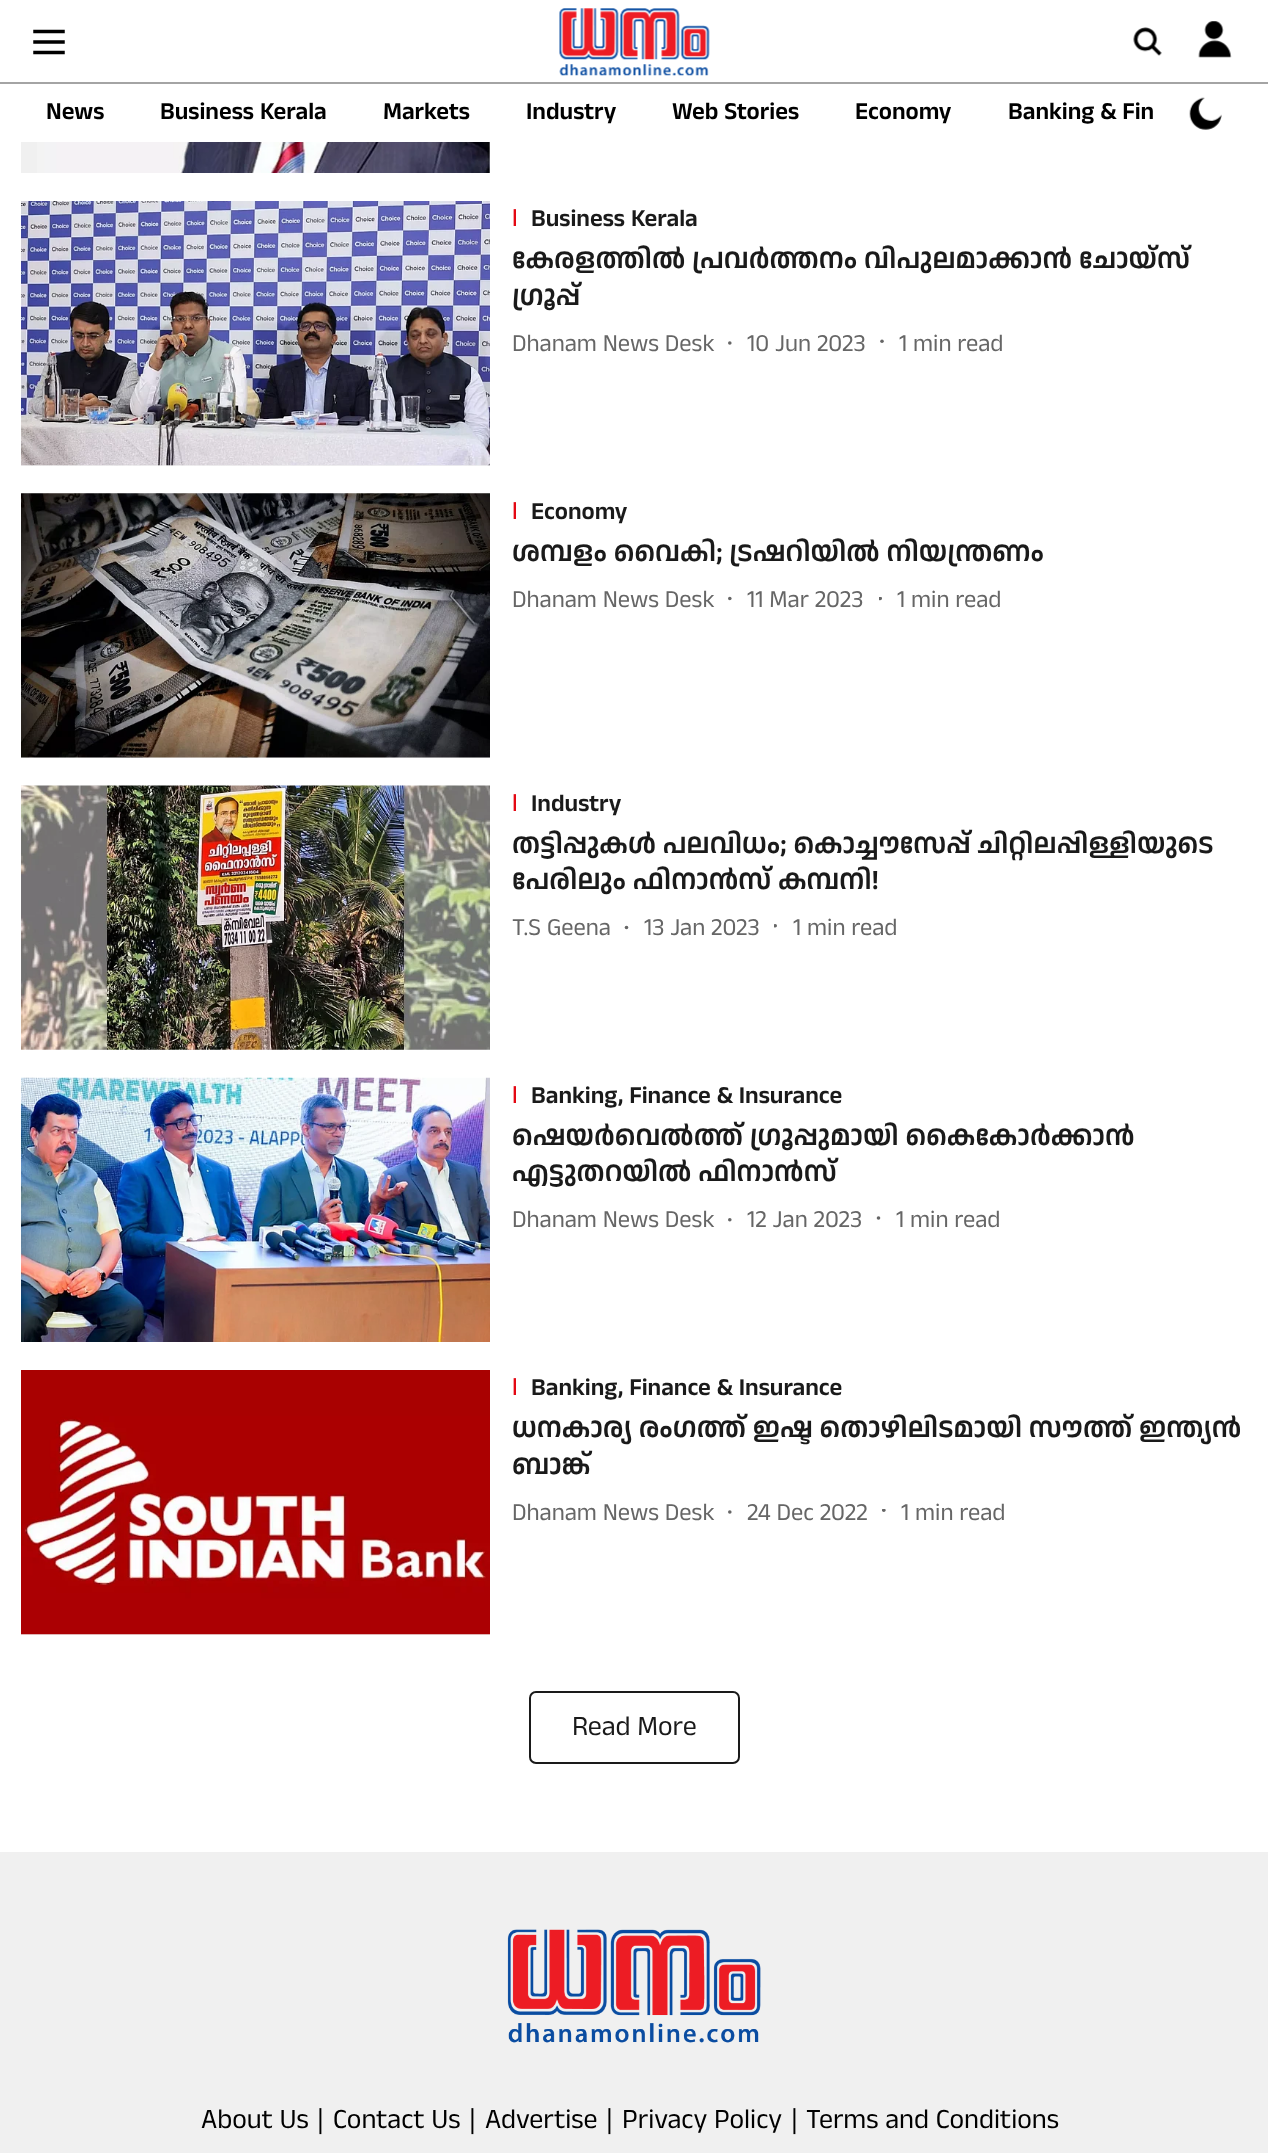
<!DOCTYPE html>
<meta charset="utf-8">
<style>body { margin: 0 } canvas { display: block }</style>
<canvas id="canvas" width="1268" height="2153"></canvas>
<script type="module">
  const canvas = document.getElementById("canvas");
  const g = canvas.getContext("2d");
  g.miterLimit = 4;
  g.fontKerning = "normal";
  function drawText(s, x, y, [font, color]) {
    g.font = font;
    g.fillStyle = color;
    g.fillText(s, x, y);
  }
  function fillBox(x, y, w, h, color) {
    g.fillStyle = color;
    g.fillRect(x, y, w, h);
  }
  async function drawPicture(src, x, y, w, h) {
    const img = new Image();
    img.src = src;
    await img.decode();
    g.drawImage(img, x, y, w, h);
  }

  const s1 = ["600 24.5px Anek Malayalam", "#000000"];
  const s2 = ["bold 24.5px Liberation Sans", "#E40813"];
  const s3 = ["600 24.5px Anek Malayalam", "#1A1A1A"];
  const s4 = ["600 28px Anek Malayalam", "#1A1A1A"];
  const s5 = ["24.5px Anek Malayalam", "#666666"];
  const s6 = ["28px Anek Malayalam", "#1A1A1A"];
  const s7 = ["28px Anek Malayalam", "#000000"];

  fillBox(0, 0, 1268, 2153, "#FFFFFF");
  fillBox(0, 82, 1268, 2, "#A4A4A4");
  await drawPicture("pic1.png", 33, 29, 32, 26);
  await drawPicture("pic2.png", 559, 8, 151, 68);
  await drawPicture("pic3.png", 1133, 27, 29, 29);
  await drawPicture("pic4.png", 1198, 21, 34, 37);
  drawText("News", 46, 119, s1);
  drawText("Business Kerala", 160, 119, s1);
  drawText("Markets", 383, 119, s1);
  drawText("Industry", 526, 119, s1);
  drawText("Web Stories", 672, 119, s1);
  drawText("Economy", 855, 119, s1);
  drawText("Banking & Fin", 1008, 119, s1);
  await drawPicture("pic5.png", 1189, 97, 33, 33);
  fillBox(21, 142, 16, 31, "#F0F0F0");
  await drawPicture("pic6.png", 37, 142, 453, 31);
  fillBox(21, 465, 469, 1, "#F0F0F0");
  await drawPicture("pic7.png", 21, 201, 469, 265);
  g.save();
  g.beginPath();
  g.rect(511, 201, 5, 35);
  g.clip();
  drawText("I", 512, 226, s2);
  g.restore();
  drawText("Business Kerala", 531, 226, s3);
  drawText("കേരളത്തില്‍ പ്രവര്‍ത്തനം വിപുലമാക്കാന്‍ ചോയ്സ്", 512, 268, s4);
  drawText("ഗ്രൂപ്പ്", 512, 305, s4);
  drawText("Dhanam News Desk", 512, 351, s5);
  g.beginPath();
  g.arc(729.8, 343, 1.8, 0, Math.PI * 2);
  g.fill();
  drawText("10 Jun 2023", 747, 351, s5);
  g.beginPath();
  g.arc(882, 341.2, 1.8, 0, Math.PI * 2);
  g.fill();
  drawText("1 min read", 899, 351, s5);
  fillBox(21, 757, 469, 1, "#F0F0F0");
  await drawPicture("pic8.png", 21, 493, 469, 265);
  g.save();
  g.beginPath();
  g.rect(511, 494, 5, 35);
  g.clip();
  drawText("I", 512, 519, s2);
  g.restore();
  drawText("Economy", 531, 519, s3);
  drawText("ശമ്പളം വൈകി; ട്രഷറിയില്‍ നിയന്ത്രണം", 512, 561, s4);
  drawText("Dhanam News Desk", 512, 607, s5);
  g.beginPath();
  g.arc(729.8, 598.5, 1.8, 0, Math.PI * 2);
  g.fill();
  drawText("11 Mar 2023", 747, 607, s5);
  g.save();
  g.beginPath();
  g.rect(879, 597, 5, 5);
  g.clip();
  g.beginPath();
  g.arc(880.2, 598.5, 1.8, 0, Math.PI * 2);
  g.fill();
  g.restore();
  drawText("1 min read", 897, 607, s5);
  await drawPicture("pic9.png", 21, 785, 469, 265);
  g.save();
  g.beginPath();
  g.rect(511, 786, 5, 35);
  g.clip();
  drawText("I", 512, 811, s2);
  g.restore();
  drawText("Industry", 531, 811, s3);
  drawText("തട്ടിപ്പുകള്‍ പലവിധം; കൊച്ചൗസേപ്പ് ചിറ്റിലപ്പിള്ളിയുടെ", 512, 853, s4);
  drawText("പേരിലും ഫിനാന്‍സ് കമ്പനി!", 512, 889, s4);
  drawText("T.S Geena", 512, 935, s5);
  g.beginPath();
  g.arc(626.5, 927.5, 1.8, 0, Math.PI * 2);
  g.fill();
  drawText("13 Jan 2023", 644, 935, s5);
  g.save();
  g.beginPath();
  g.rect(774, 924, 5, 5);
  g.clip();
  g.beginPath();
  g.arc(775.2, 925.8, 1.8, 0, Math.PI * 2);
  g.fill();
  g.restore();
  drawText("1 min read", 793, 935, s5);
  await drawPicture("pic10.png", 21, 1077, 469, 265);
  g.save();
  g.beginPath();
  g.rect(511, 1078, 5, 35);
  g.clip();
  drawText("I", 512, 1103, s2);
  g.restore();
  drawText("Banking, Finance & Insurance", 531, 1103, s3);
  drawText("ഷെയര്‍വെല്‍ത്ത് ഗ്രൂപ്പുമായി കൈകോര്‍ക്കാന്‍", 512, 1145, s4);
  drawText("എട്ടുതറയില്‍ ഫിനാന്‍സ്", 512, 1181, s4);
  drawText("Dhanam News Desk", 512, 1227, s5);
  g.beginPath();
  g.arc(729.8, 1219.8, 1.8, 0, Math.PI * 2);
  g.fill();
  drawText("12 Jan 2023", 747, 1227, s5);
  g.beginPath();
  g.arc(878.5, 1218, 1.8, 0, Math.PI * 2);
  g.fill();
  drawText("1 min read", 896, 1227, s5);
  fillBox(21, 1634, 469, 1, "#F0F0F0");
  await drawPicture("pic11.png", 21, 1370, 469, 265);
  g.save();
  g.beginPath();
  g.rect(511, 1370, 5, 35);
  g.clip();
  drawText("I", 512, 1395, s2);
  g.restore();
  drawText("Banking, Finance & Insurance", 531, 1395, s3);
  drawText("ധനകാര്യ രംഗത്ത് ഇഷ്ട തൊഴിലിടമായി സൗത്ത് ഇന്ത്യന്‍", 512, 1437, s4);
  drawText("ബാങ്ക്", 512, 1474, s4);
  drawText("Dhanam News Desk", 512, 1520, s5);
  g.beginPath();
  g.arc(729.8, 1512, 1.8, 0, Math.PI * 2);
  g.fill();
  drawText("24 Dec 2022", 747, 1520, s5);
  g.save();
  g.beginPath();
  g.rect(882, 1509, 5, 5);
  g.clip();
  g.beginPath();
  g.arc(883.8, 1510.2, 1.8, 0, Math.PI * 2);
  g.fill();
  g.restore();
  drawText("1 min read", 901, 1520, s5);
  g.beginPath();
  g.roundRect(530, 1692, 209, 71, 6);
  g.strokeStyle = "#1A1A1A";
  g.lineWidth = 2;
  g.stroke();
  drawText("Read More", 572, 1735, s6);
  fillBox(0, 1852, 1268, 301, "#F0F0F0");
  await drawPicture("pic12.png", 507, 1929, 254, 114);
  drawText("About Us", 201, 2128, s7);
  drawText("|", 317, 2128, s7);
  drawText("Contact Us", 333, 2128, s7);
  drawText("|", 469, 2128, s7);
  drawText("Advertise", 485, 2128, s7);
  drawText("|", 606, 2128, s7);
  drawText("Privacy Policy", 622, 2128, s7);
  drawText("|", 791, 2128, s7);
  drawText("Terms and Conditions", 806, 2128, s7);
</script>
